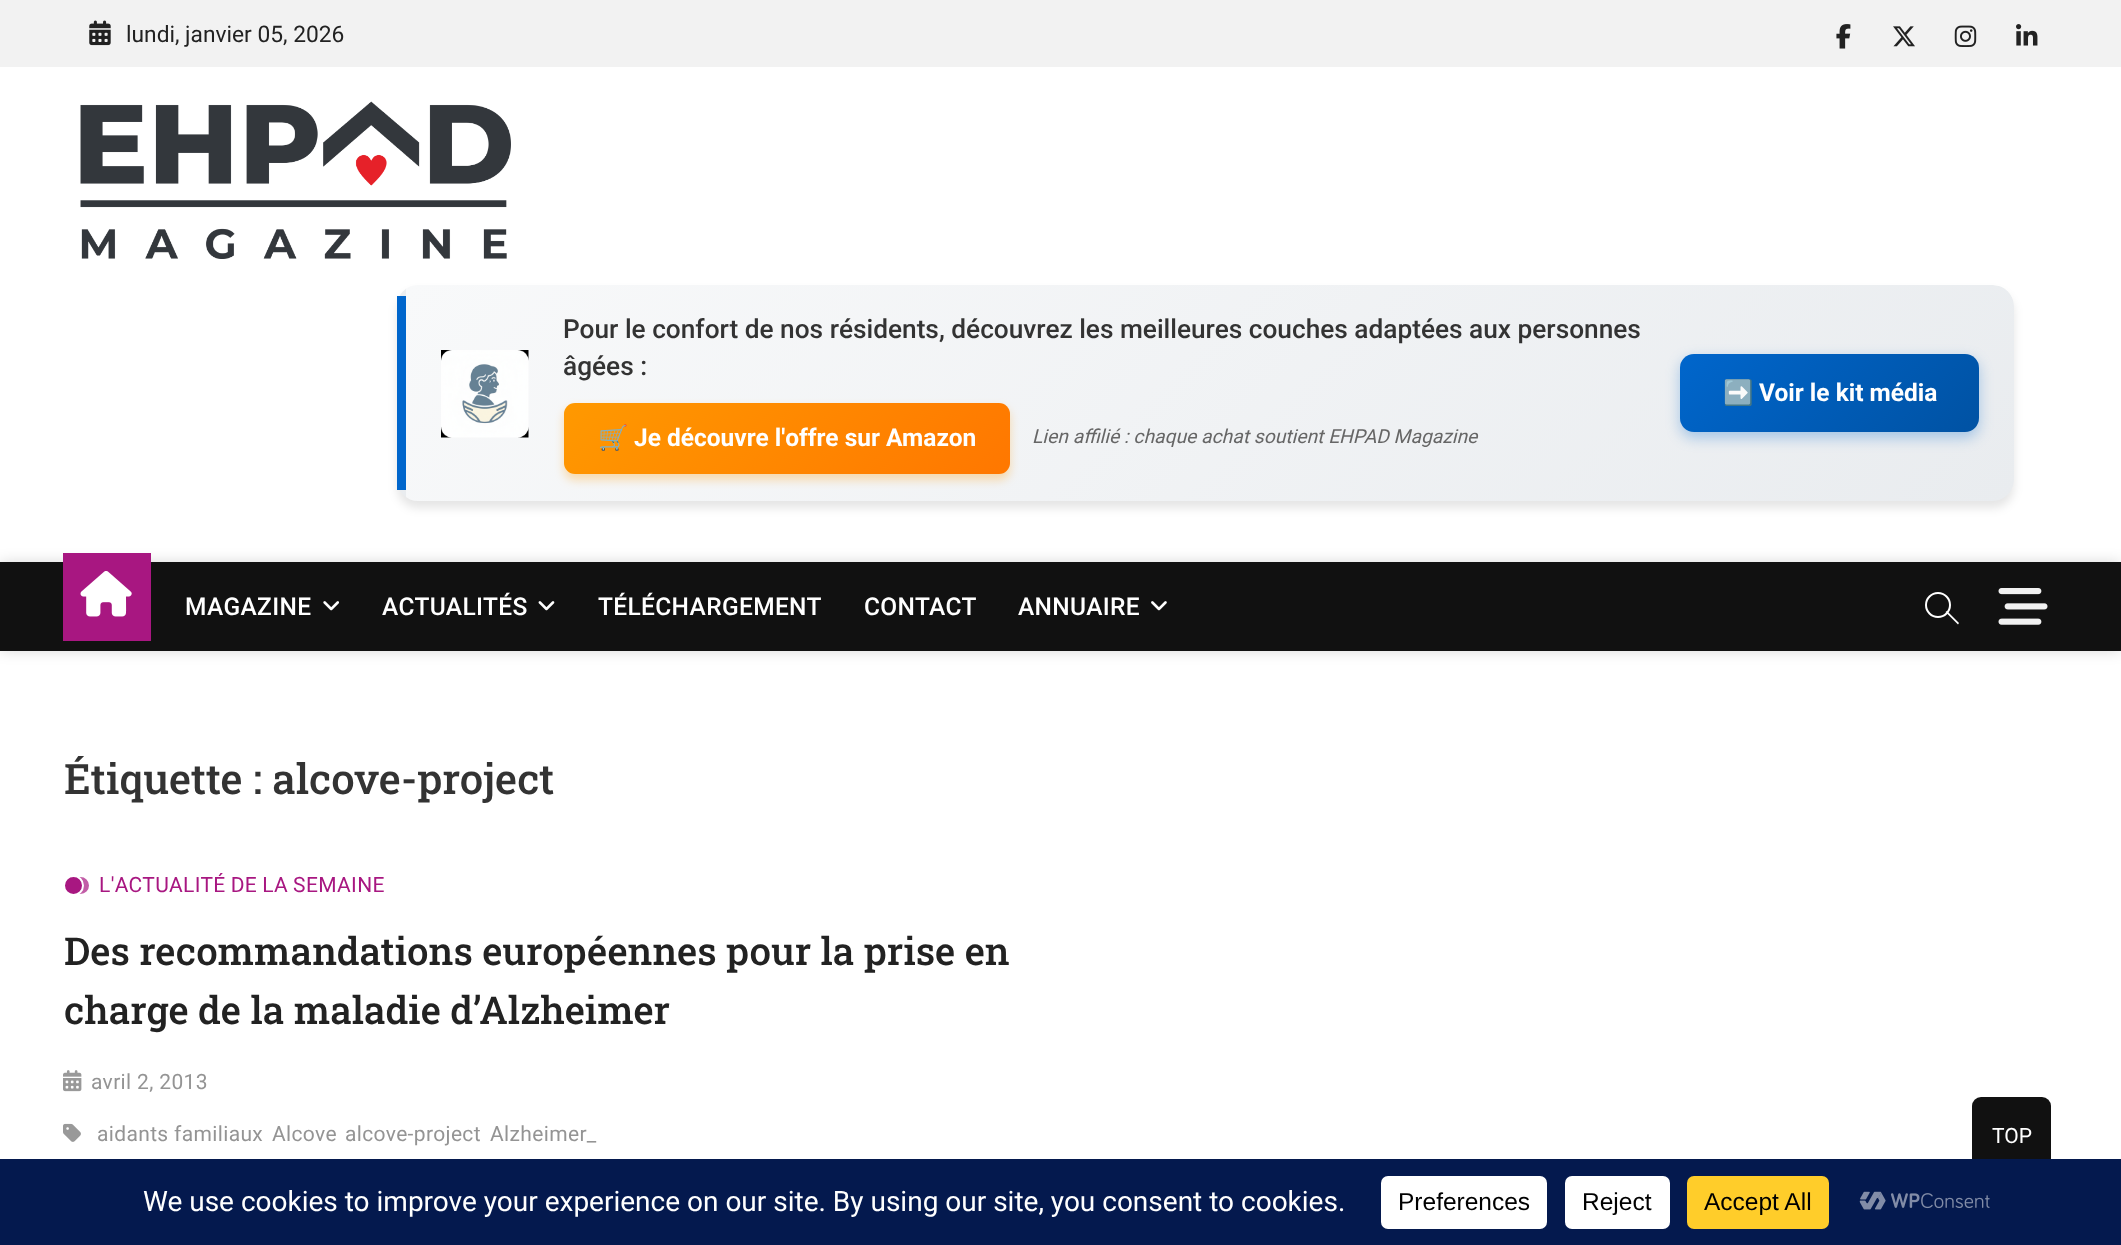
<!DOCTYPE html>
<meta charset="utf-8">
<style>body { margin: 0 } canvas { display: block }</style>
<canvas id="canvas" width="2121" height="1245"></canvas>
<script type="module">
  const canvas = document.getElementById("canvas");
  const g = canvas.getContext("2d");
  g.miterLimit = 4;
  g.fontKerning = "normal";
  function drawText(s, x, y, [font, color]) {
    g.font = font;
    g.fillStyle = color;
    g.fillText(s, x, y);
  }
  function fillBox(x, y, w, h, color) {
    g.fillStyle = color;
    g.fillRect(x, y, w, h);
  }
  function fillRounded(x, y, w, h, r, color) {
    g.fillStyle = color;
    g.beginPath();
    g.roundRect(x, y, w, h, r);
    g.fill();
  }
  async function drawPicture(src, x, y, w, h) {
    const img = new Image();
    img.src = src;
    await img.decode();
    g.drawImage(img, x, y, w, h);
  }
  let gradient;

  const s1 = ["22.75px Roboto", "#222222"];
  const s2 = ["500 26.25px Roboto", "#333333"];
  const s3 = ["bold 24.5px Noto Color Emoji", "#FFFFFF"];
  const s4 = ["bold 24.5px Roboto", "#FFFFFF"];
  const s5 = ["italic 19.25px Roboto", "#666666"];
  const s6 = ["500 24.5px Roboto", "#FFFFFF"];
  const s7 = ["500 42px Roboto Slab", "#333333"];
  const s8 = ["21px Roboto", "#A81781"];
  const s9 = ["500 38.5px Roboto Slab", "#222222"];
  const s10 = ["21px Roboto", "#949494"];
  const s11 = ["21px Roboto", "#FFFFFF"];
  const s12 = ["28px Roboto", "#FFFFFF"];
  const s13 = ["24.5px Liberation Sans", "#000000"];

  fillBox(0, 0, 2121, 1245, "#FFFFFF");
  fillBox(0, 0, 2121, 67, "#F2F2F2");
  await drawPicture("pic1.png", 89, 20, 22, 26);
  drawText("lundi, janvier 05, 2026", 126, 42, s1);
  await drawPicture("pic2.png", 1836, 24, 15, 25);
  await drawPicture("pic3.png", 1893, 26, 22, 21);
  await drawPicture("pic4.png", 1954, 25, 23, 22);
  await drawPicture("pic5.png", 2016, 24, 22, 22);
  await drawPicture("pic6.png", 80, 101, 431, 158);
  g.fillStyle = "rgba(0, 0, 0, 0.1)";
  g.filter = "blur(5px)";
  g.beginPath();
  g.roundRect(397, 292, 1617, 216, 21);
  g.fill();
  g.filter = "none";
  g.save();
  g.beginPath();
  g.roundRect(397, 285, 1617, 216, 21);
  g.clip();
  gradient = g.createLinearGradient(-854, -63, 58, 849);
  gradient.addColorStop(0, "#F8F9FA");
  gradient.addColorStop(1, "#E9ECEF");
  g.fillStyle = gradient;
  g.fillRect(399, 288, 7, 210);
  gradient = g.createLinearGradient(754, -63, 1666, 849);
  gradient.addColorStop(0, "#F8F9FA");
  gradient.addColorStop(1, "#E9ECEF");
  g.fillStyle = gradient;
  g.beginPath();
  g.roundRect(406, 285, 1608, 216, [0, 21, 21, 0]);
  g.fill();
  g.restore();
  fillBox(397, 296, 9, 194, "#0066CC");
  await drawPicture("pic7.png", 441, 350, 88, 88);
  drawText("Pour le confort de nos résidents, découvrez les meilleures couches adaptées aux personnes", 563, 338, s2);
  drawText("âgées :", 563, 375, s2);
  g.fillStyle = "rgba(255, 153, 0, 0.3)";
  g.filter = "blur(5px)";
  g.beginPath();
  g.roundRect(564, 408, 446, 72, 11);
  g.fill();
  g.filter = "none";
  gradient = g.createLinearGradient(657, 309, 916, 568);
  gradient.addColorStop(0, "#FF9900");
  gradient.addColorStop(1, "#FF7700");
  g.fillStyle = gradient;
  g.beginPath();
  g.roundRect(564, 403, 446, 71, 11);
  g.fill();
  drawText("🛒", 598, 446, s3);
  drawText("Je découvre l'offre sur Amazon", 634, 446, s4);
  drawText("Lien affilié : chaque achat soutient EHPAD Magazine", 1032, 443, s5);
  g.fillStyle = "rgba(0, 102, 204, 0.3)";
  g.filter = "blur(7px)";
  g.beginPath();
  g.roundRect(1680, 359, 299, 79, 14);
  g.fill();
  g.filter = "none";
  gradient = g.createLinearGradient(1735, 298, 1924, 487);
  gradient.addColorStop(0, "#0066CC");
  gradient.addColorStop(1, "#0052A3");
  g.fillStyle = gradient;
  g.beginPath();
  g.roundRect(1680, 354, 299, 78, 14);
  g.fill();
  drawText("➡️", 1723, 401, s3);
  drawText("Voir le kit média", 1759, 401, s4);
  g.fillStyle = "rgba(0, 0, 0, 0.15)";
  g.filter = "blur(7px)";
  g.beginPath();
  g.rect(0, 562, 2121, 89);
  g.fill();
  g.filter = "none";
  fillBox(0, 562, 2121, 89, "#111111");
  fillBox(63, 553, 88, 88, "#A81781");
  await drawPicture("pic8.png", 80, 571, 52, 46);
  g.letterSpacing = "0.35px";
  drawText("MAGAZINE", 185, 615, s6);
  await drawPicture("pic9.png", 323, 601, 16, 10);
  drawText("ACTUALITÉS", 382, 615, s6);
  await drawPicture("pic10.png", 538, 601, 17, 10);
  drawText("TÉLÉCHARGEMENT", 598, 615, s6);
  drawText("CONTACT", 864, 615, s6);
  drawText("ANNUAIRE", 1018, 615, s6);
  await drawPicture("pic11.png", 1151, 601, 16, 10);
  g.beginPath();
  g.arc(1938, 605, 12, 0, Math.PI * 2);
  g.strokeStyle = "#FFFFFF";
  g.lineWidth = 2;
  g.stroke();
  g.beginPath();
  g.moveTo(1945.5, 612);
  g.lineTo(1947, 611);
  g.lineTo(1959, 623);
  g.lineTo(1958, 624.5);
  g.closePath();
  g.fill();
  await drawPicture("pic12.png", 1998, 588, 50, 37);
  g.letterSpacing = "0px";
  drawText("Étiquette : alcove-project", 64, 794, s7);
  g.fillStyle = "#C25DA7";
  g.beginPath();
  g.arc(80.5, 885.5, 9.5, 0, Math.PI * 2);
  g.fill();
  g.stroke();
  g.fillStyle = "#A81781";
  g.beginPath();
  g.arc(73.5, 885.5, 9.5, 0, Math.PI * 2);
  g.fill();
  g.stroke();
  g.letterSpacing = "0.35px";
  g.wordSpacing = "-0.5px";
  drawText("L'ACTUALITÉ DE LA SEMAINE", 99, 892, s8);
  g.letterSpacing = "0px";
  g.wordSpacing = "0px";
  drawText("Des recommandations européennes pour la prise en", 64, 965, s9);
  drawText("charge de la maladie d’Alzheimer", 64, 1024, s9);
  await drawPicture("pic13.png", 63, 1070, 19, 22);
  g.letterSpacing = "0.35px";
  drawText("avril 2, 2013", 91, 1089, s10);
  await drawPicture("pic14.png", 63, 1123, 18, 19);
  drawText("aidants familiaux", 97, 1141, s10);
  drawText("Alcove", 272, 1141, s10);
  drawText("alcove-project", 345, 1141, s10);
  drawText("Alzheimer_", 490, 1141, s10);
  fillRounded(1972, 1097, 79, 79, 9, "#111111");
  g.letterSpacing = "0px";
  drawText("TOP", 1992, 1143, s11);
  fillBox(0, 1159, 2121, 86, "#04194E");
  drawText("We use cookies to improve your experience on our site. By using our site, you consent to cookies.", 143, 1211, s12);
  fillRounded(1381, 1176, 166, 53, 7, "#FFFFFF");
  drawText("Preferences", 1398, 1210, s13);
  fillRounded(1565, 1176, 105, 53, 7, "#FFFFFF");
  drawText("Reject", 1582, 1210, s13);
  fillRounded(1687, 1176, 142, 53, 7, "#FFCD2A");
  drawText("Accept All", 1704, 1210, s13);
  await drawPicture("pic15.png", 1859, 1191, 131, 19);
</script>
